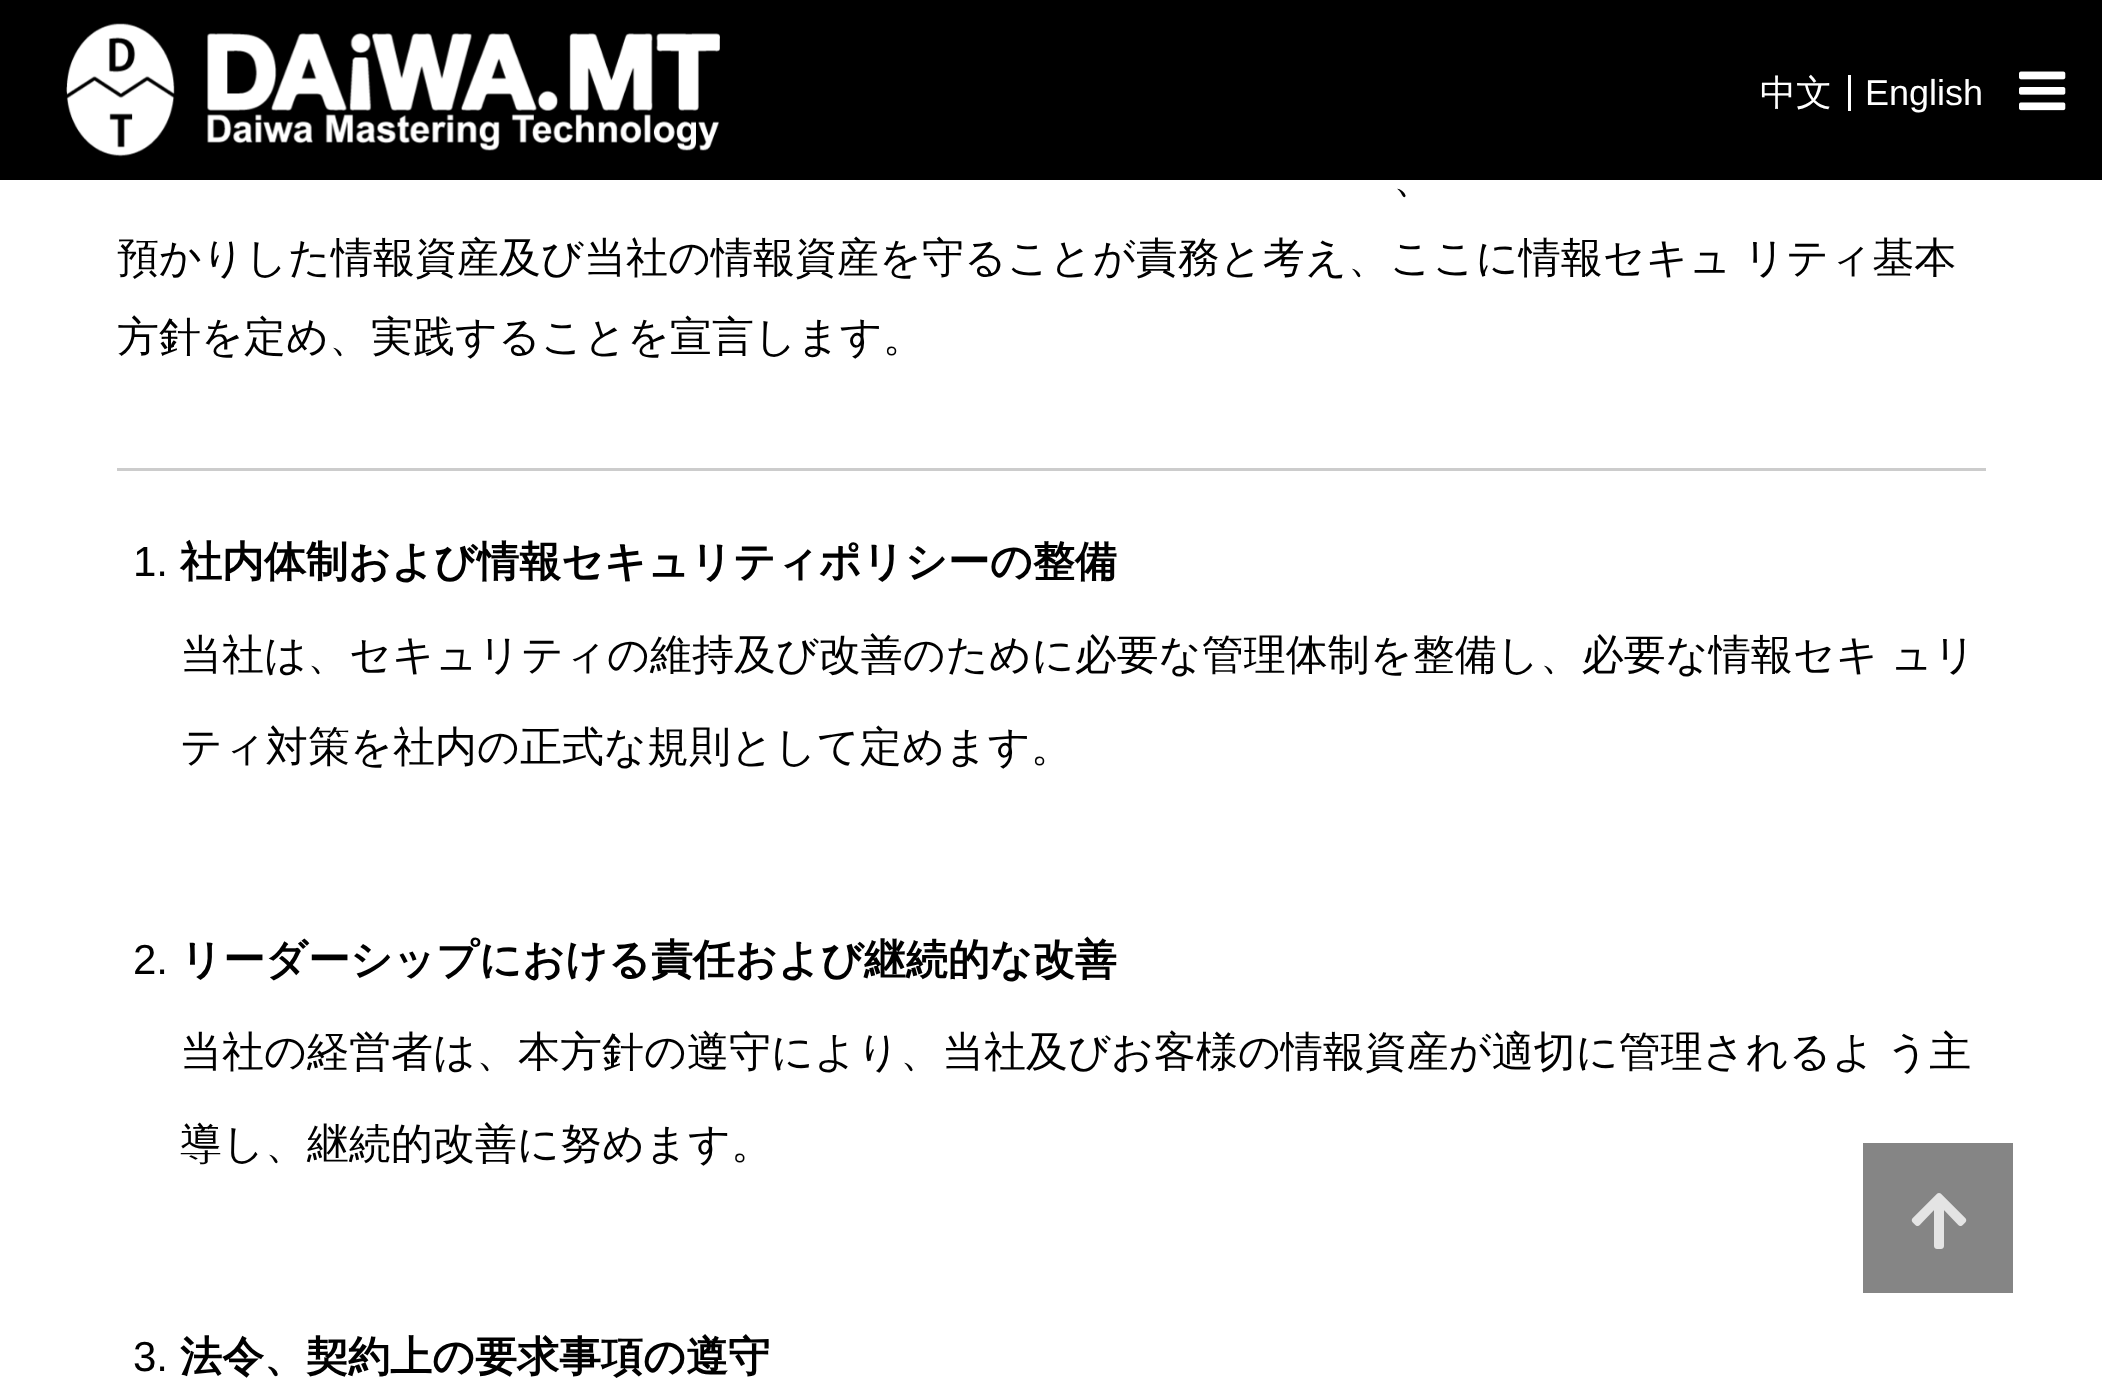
<!DOCTYPE html>
<meta charset="utf-8">
<style>body { margin: 0 } canvas { display: block }</style>
<canvas id="canvas" width="2102" height="1383"></canvas>
<script type="module">
  const canvas = document.getElementById("canvas");
  const g = canvas.getContext("2d");
  g.miterLimit = 4;
  g.fontKerning = "normal";
  function drawText(s, x, y, [font, color]) {
    g.font = font;
    g.fillStyle = color;
    g.fillText(s, x, y);
  }
  function fillBox(x, y, w, h, color) {
    g.fillStyle = color;
    g.fillRect(x, y, w, h);
  }
  async function drawPicture(src, x, y, w, h) {
    const img = new Image();
    img.src = src;
    await img.decode();
    g.drawImage(img, x, y, w, h);
  }

  const s1 = ["500 36px WenQuanYi Zen Hei", "#FFFFFF"];
  const s2 = ["36px Liberation Sans", "#FFFFFF"];
  const s3 = ["500 42px WenQuanYi Zen Hei", "#000000"];
  const s4 = ["42px Liberation Sans", "#000000"];
  const s5 = ["bold 42px WenQuanYi Zen Hei", "#000000"];

  fillBox(0, 0, 2102, 1383, "#FFFFFF");
  fillBox(0, 0, 2102, 180, "#000000");
  await drawPicture("pic1.png", 66, 23, 654, 134);
  await drawPicture("pic2.png", 2019, 71, 47, 40);
  drawText("中文", 1760, 105, s1);
  fillBox(1848, 75, 3, 36, "#FFFFFF");
  drawText("English", 1865, 105, s2);
  g.wordSpacing = "-1px";
  drawText("、", 1393, 192, s3);
  drawText("預かりした情報資産及び当社の情報資産を守ることが責務と考え、ここに情報セキュ リティ基本", 117, 272, s3);
  g.wordSpacing = "0px";
  drawText("方針を定め、実践することを宣言します。", 117, 351, s3);
  fillBox(117, 468, 1869, 3, "#CCCCCC");
  drawText("1.", 133, 576, s4);
  drawText("社内体制および情報セキュリティポリシーの整備", 180, 576, s5);
  g.wordSpacing = "-1px";
  drawText("当社は、セキュリティの維持及び改善のために必要な管理体制を整備し、必要な情報セキ ュリ", 180, 669, s3);
  g.wordSpacing = "0px";
  drawText("ティ対策を社内の正式な規則として定めます。", 180, 761, s3);
  drawText("2.", 133, 974, s4);
  drawText("リーダーシップにおける責任および継続的な改善", 180, 974, s5);
  g.wordSpacing = "-1px";
  drawText("当社の経営者は、本方針の遵守により、当社及びお客様の情報資産が適切に管理されるよ う主", 180, 1066, s3);
  g.wordSpacing = "0px";
  drawText("導し、継続的改善に努めます。", 180, 1158, s3);
  drawText("3.", 133, 1371, s4);
  drawText("法令、契約上の要求事項の遵守", 180, 1371, s5);
  fillBox(1863, 1143, 150, 150, "#858585");
  await drawPicture("pic3.png", 1911, 1193, 56, 56);
</script>
